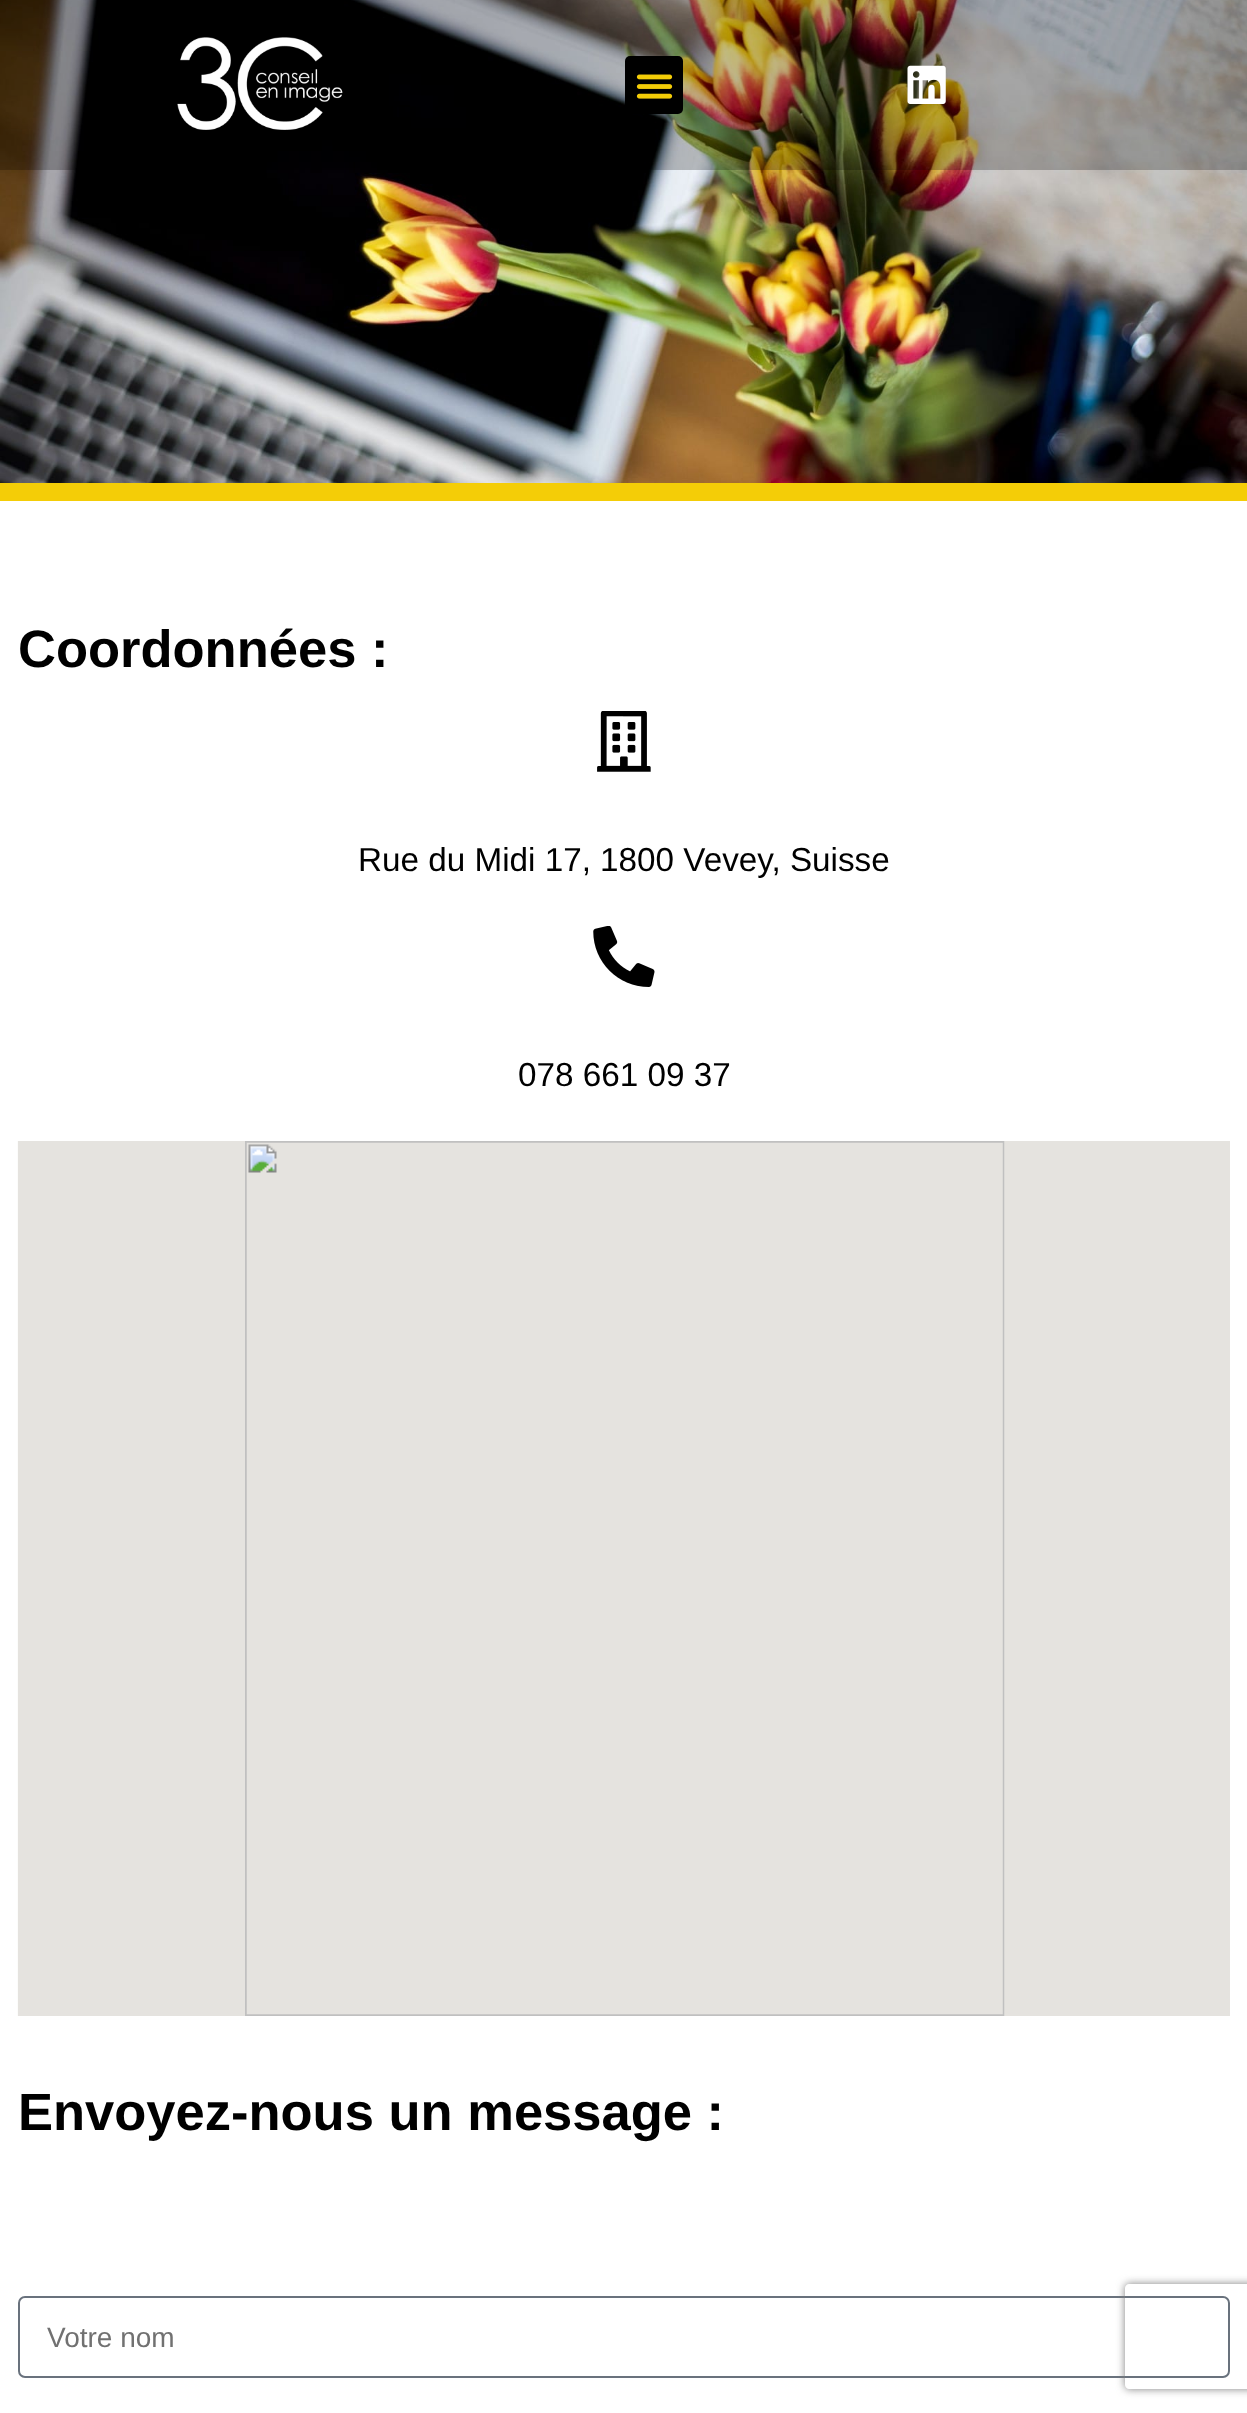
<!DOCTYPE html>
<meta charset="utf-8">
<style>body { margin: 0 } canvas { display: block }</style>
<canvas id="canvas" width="1247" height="2413"></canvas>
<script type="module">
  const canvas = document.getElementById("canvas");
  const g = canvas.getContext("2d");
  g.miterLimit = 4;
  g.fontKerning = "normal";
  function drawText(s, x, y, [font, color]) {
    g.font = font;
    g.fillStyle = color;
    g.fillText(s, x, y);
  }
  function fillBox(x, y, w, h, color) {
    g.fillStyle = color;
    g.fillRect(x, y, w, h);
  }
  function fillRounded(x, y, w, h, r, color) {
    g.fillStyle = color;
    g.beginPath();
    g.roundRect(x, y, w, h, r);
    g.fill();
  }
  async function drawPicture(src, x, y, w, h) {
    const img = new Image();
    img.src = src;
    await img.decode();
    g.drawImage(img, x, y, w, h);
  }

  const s1 = ["bold 52.5px Liberation Sans", "#000000"];
  const s2 = ["33.25px Liberation Sans", "#000000"];
  const s3 = ["28px Liberation Sans", "#717171"];

  fillBox(0, 0, 1247, 2413, "#FFFFFF");
  await drawPicture("pic4.png", 0, 0, 1247, 483);
  fillBox(0, 0, 1247, 170, "rgba(0, 0, 0, 0.24)");
  await drawPicture("pic1.png", 177, 37, 166, 93);
  fillRounded(625, 56, 58, 58, 5, "#000000");
  await drawPicture("pic2.png", 636, 74, 37, 25);
  await drawPicture("pic3.png", 907, 65, 39, 39);
  fillBox(0, 483, 1247, 18, "#F4CD07");
  drawText("Coordonnées :", 18, 667, s1);
  await drawPicture("pic5.png", 597, 711, 54, 61);
  drawText("Rue du Midi 17, 1800 Vevey, Suisse", 358, 871, s2);
  await drawPicture("pic6.png", 593, 926, 62, 61);
  drawText("078 661 09 37", 518, 1086, s2);
  await drawPicture("pic7.png", 17, 1141, 1213, 875);
  drawText("Envoyez-nous un message :", 18, 2130, s1);
  g.beginPath();
  g.roundRect(19, 2297, 1210, 80, 6);
  g.strokeStyle = "#69727D";
  g.lineWidth = 2;
  g.stroke();
  drawText("Votre nom", 47, 2347, s3);
  g.save();
  g.beginPath();
  g.moveTo(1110, 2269);
  g.lineTo(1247, 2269);
  g.lineTo(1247, 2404);
  g.lineTo(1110, 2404);
  g.closePath();
  g.moveTo(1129, 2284);
  g.lineTo(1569, 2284);
  g.bezierCurveTo(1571, 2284, 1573, 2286, 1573, 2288);
  g.lineTo(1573, 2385);
  g.bezierCurveTo(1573, 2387, 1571, 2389, 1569, 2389);
  g.lineTo(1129, 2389);
  g.bezierCurveTo(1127, 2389, 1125, 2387, 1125, 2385);
  g.lineTo(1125, 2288);
  g.bezierCurveTo(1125, 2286, 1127, 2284, 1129, 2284);
  g.closePath();
  g.clip("evenodd");
  g.fillStyle = "#808080";
  g.filter = "blur(4.5px)";
  g.beginPath();
  g.roundRect(1125, 2284, 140, 105, 4);
  g.fill();
  g.filter = "none";
  g.restore();
</script>
